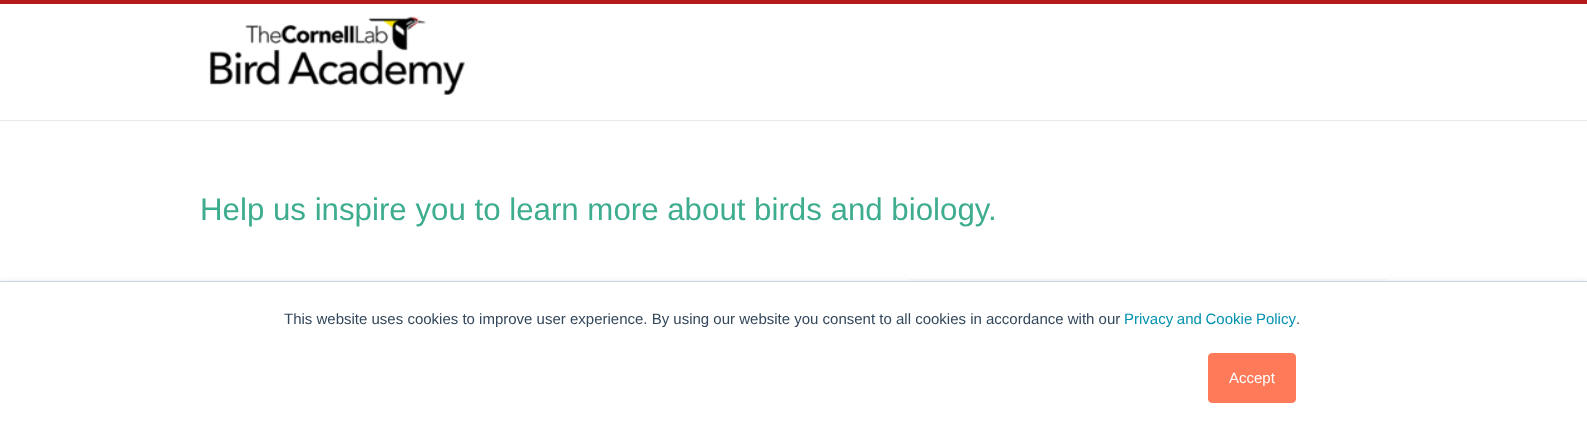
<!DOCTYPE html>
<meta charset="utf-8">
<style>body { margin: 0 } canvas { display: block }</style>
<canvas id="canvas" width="1587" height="434"></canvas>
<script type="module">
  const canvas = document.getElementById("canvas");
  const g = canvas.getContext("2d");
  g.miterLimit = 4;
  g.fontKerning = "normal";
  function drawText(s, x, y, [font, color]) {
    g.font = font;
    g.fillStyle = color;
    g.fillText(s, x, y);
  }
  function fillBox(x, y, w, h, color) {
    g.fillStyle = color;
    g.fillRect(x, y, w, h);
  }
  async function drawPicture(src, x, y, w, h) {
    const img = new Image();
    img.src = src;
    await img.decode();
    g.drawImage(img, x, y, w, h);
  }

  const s1 = ["31.25px Liberation Sans", "#3EAD8F"];
  const s2 = ["15px Liberation Sans", "#33475B"];
  const s3 = ["15px Liberation Sans", "#0091AE"];
  const s4 = ["15px Liberation Sans", "#FFFFFF"];

  fillBox(0, 0, 1587, 434, "#FFFFFF");
  fillBox(0, 0, 1587, 4, "#B31B1B");
  fillBox(0, 120, 1587, 1, "#EAE9E9");
  await drawPicture("pic1.png", 209, 16, 256, 79);
  drawText("Help us inspire you to learn more about birds and biology.", 200, 220, s1);
  fillBox(908, 279, 480, 2, "#F5F5F5");
  g.fillStyle = "#EAF0F6";
  g.filter = "blur(2px)";
  g.beginPath();
  g.rect(0, 280, 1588, 154);
  g.fill();
  g.filter = "none";
  fillBox(0, 282, 1587, 152, "#FFFFFF");
  fillBox(0, 281, 1587, 1, "#CBD6E2");
  drawText("This website uses cookies to improve user experience. By using our website you consent to all cookies in accordance with our", 284, 324, s2);
  g.wordSpacing = "-0.5px";
  drawText("Privacy and Cookie Policy", 1124, 324, s3);
  g.wordSpacing = "0px";
  drawText(".", 1296, 324, s2);
  g.fillStyle = "#FF7A59";
  g.beginPath();
  g.roundRect(1208.5, 353.5, 87, 49, 3.5);
  g.fill();
  g.strokeStyle = "#FF7A59";
  g.stroke();
  drawText("Accept", 1229, 383, s4);
</script>
